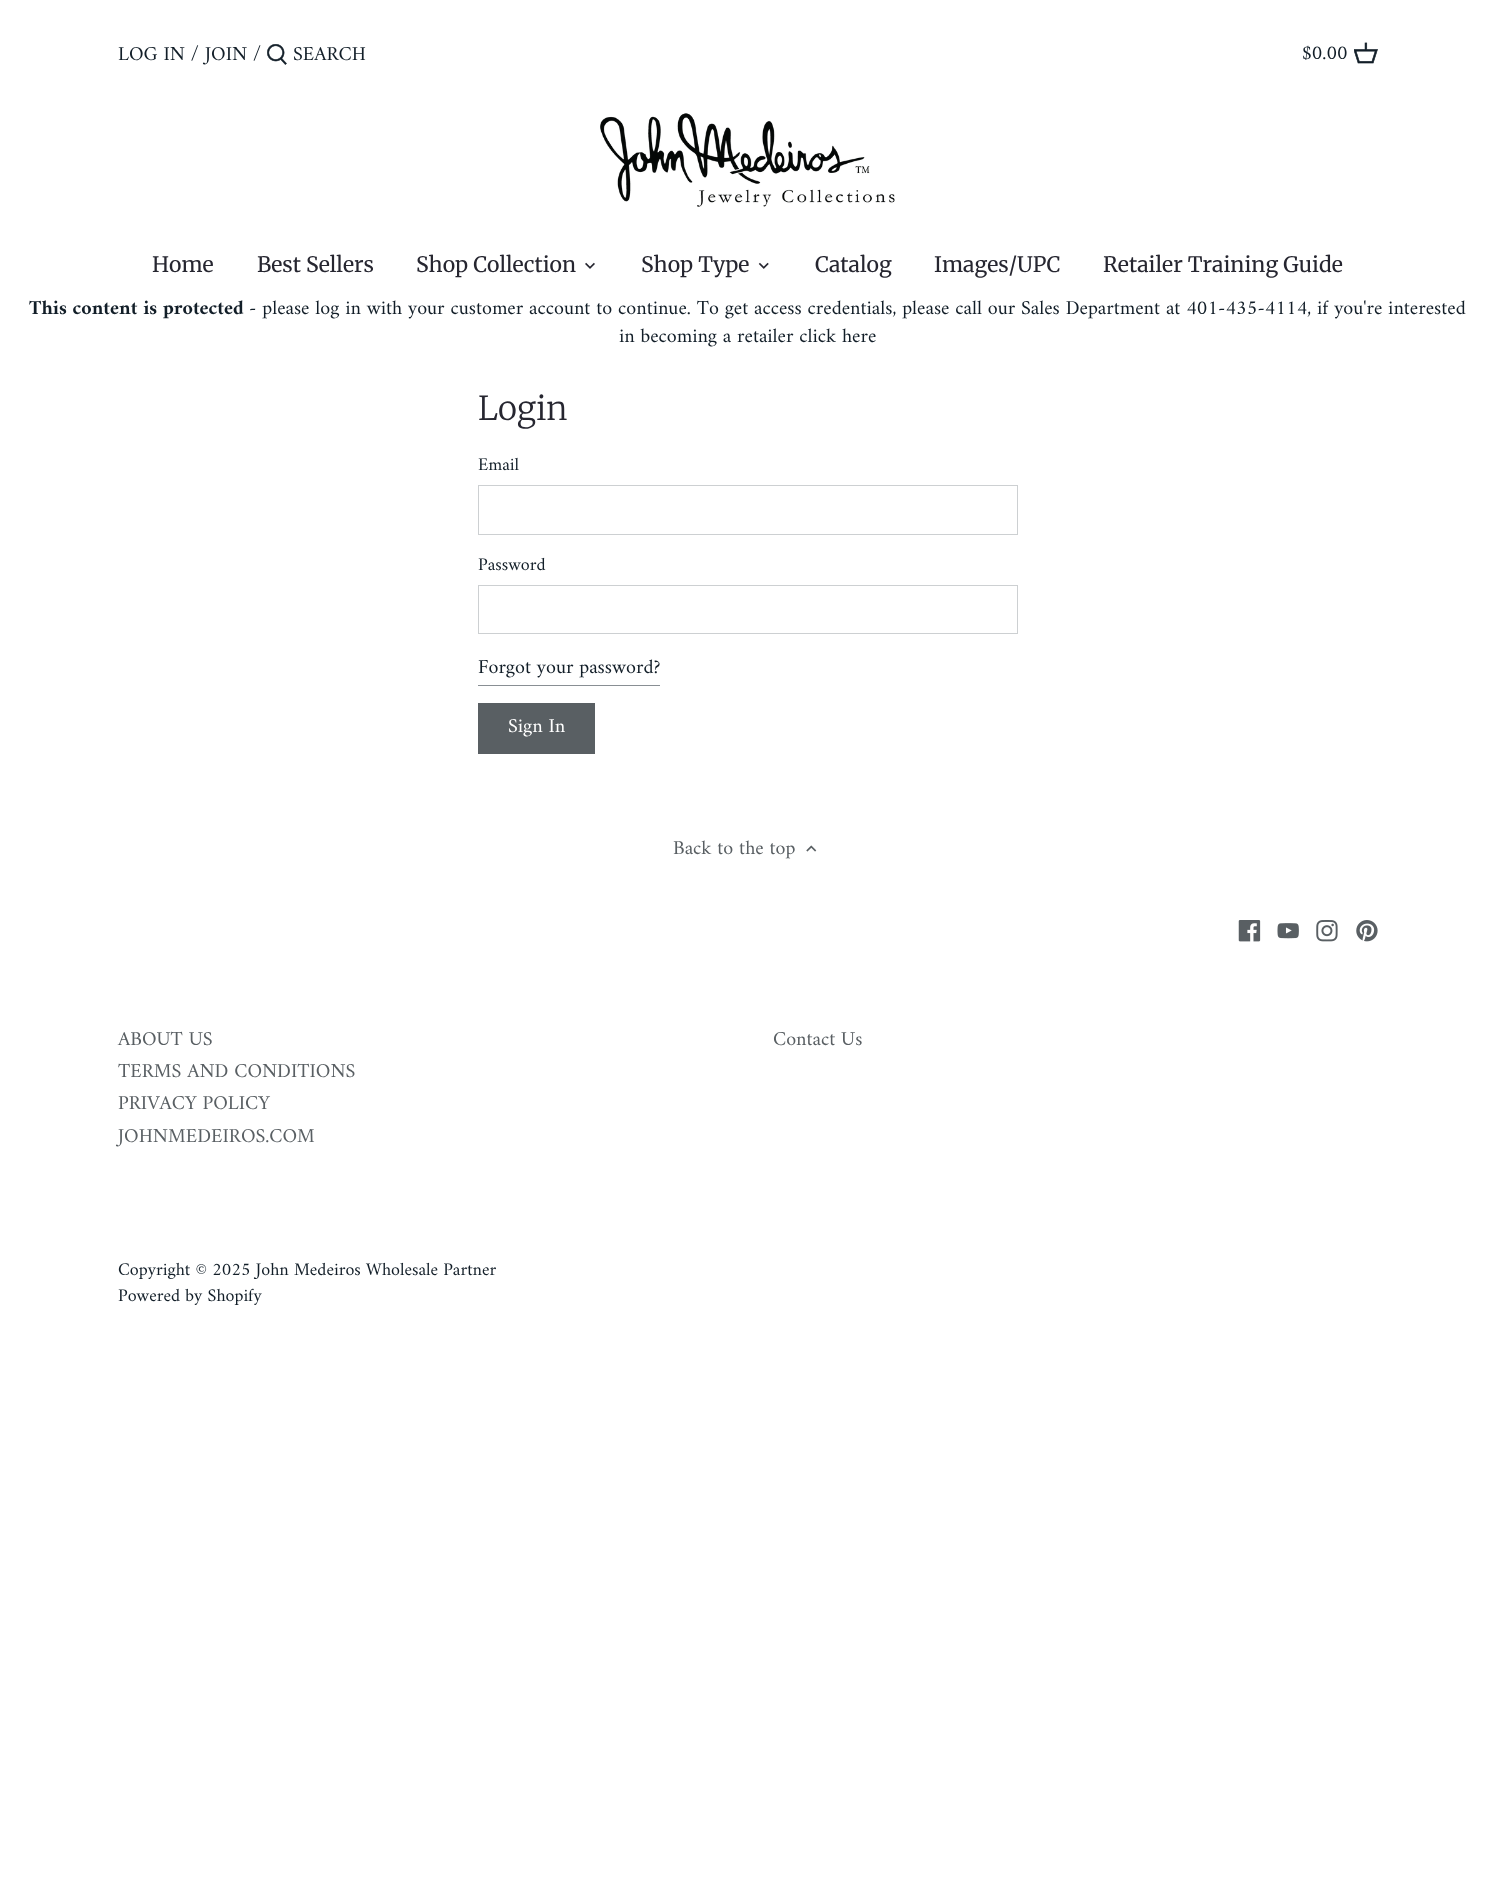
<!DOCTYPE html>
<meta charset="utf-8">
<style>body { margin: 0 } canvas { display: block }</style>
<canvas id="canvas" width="1494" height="1901"></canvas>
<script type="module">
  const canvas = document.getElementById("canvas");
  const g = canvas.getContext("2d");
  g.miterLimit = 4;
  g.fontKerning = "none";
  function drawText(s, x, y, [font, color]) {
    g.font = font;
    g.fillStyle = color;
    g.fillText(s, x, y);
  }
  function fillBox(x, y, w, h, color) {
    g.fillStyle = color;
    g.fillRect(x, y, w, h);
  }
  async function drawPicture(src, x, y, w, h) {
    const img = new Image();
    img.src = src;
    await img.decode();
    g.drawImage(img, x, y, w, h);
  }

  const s1 = ["20px Amiri", "#121E28"];
  const s2 = ["21.25px Merriweather", "#262630"];
  const s3 = ["bold 20px Amiri", "#121E28"];
  const s4 = ["300 33px Merriweather", "#262630"];
  const s5 = ["18px Amiri", "#121E28"];
  const s6 = ["20px Amiri", "#FFFFFF"];
  const s7 = ["20px Amiri", "#595F63"];

  fillBox(0, 0, 1494, 1901, "#FFFFFF");
  drawText("LOG IN /", 118, 60, s1);
  drawText("JOIN /", 205, 60, s1);
  await drawPicture("pic1.png", 267, 44, 20, 21);
  drawText("SEARCH", 293, 60, s1);
  drawText("$0.00", 1302, 59, s1);
  await drawPicture("pic2.png", 1354, 42, 24, 22);
  await drawPicture("pic3.png", 600, 113, 295, 94);
  drawText("Home", 152, 272, s2);
  drawText("Best Sellers", 257, 272, s2);
  drawText("Shop Collection", 416, 272, s2);
  await drawPicture("pic4.png", 585, 262, 10, 7);
  drawText("Shop Type", 641, 272, s2);
  await drawPicture("pic5.png", 758, 262, 11, 7);
  drawText("Catalog", 815, 272, s2);
  drawText("Images/UPC", 934, 272, s2);
  drawText("Retailer Training Guide", 1103, 272, s2);
  drawText("This content is protected", 29, 314, s3);
  drawText("- please log in with your customer account to continue. To get access credentials, please call our Sales Department at 401-435-4114, if you're interested", 249, 314, s1);
  drawText("in becoming a retailer click here", 619, 342, s1);
  drawText("Login", 478, 420, s4);
  drawText("Email", 478, 470, s5);
  g.strokeStyle = "#CDD0D2";
  g.strokeRect(478.5, 485.5, 539, 49);
  drawText("Password", 478, 570, s5);
  g.strokeRect(478.5, 585.5, 539, 48);
  drawText("Forgot your password?", 478, 673, s1);
  fillBox(478, 685, 182, 1, "#898F94");
  fillBox(478, 703, 117, 51, "#595F63");
  drawText("Sign In", 508, 732, s6);
  drawText("Back to the top", 673, 854, s7);
  await drawPicture("pic6.png", 806, 845, 11, 7);
  await drawPicture("pic7.png", 1238, 920, 23, 22);
  await drawPicture("pic8.png", 1277, 923, 22, 16);
  await drawPicture("pic9.png", 1316, 920, 22, 22);
  await drawPicture("pic10.png", 1356, 920, 22, 22);
  drawText("ABOUT US", 118, 1045, s7);
  drawText("TERMS AND CONDITIONS", 118, 1077, s7);
  drawText("PRIVACY POLICY", 118, 1109, s7);
  drawText("JOHNMEDEIROS.COM", 118, 1142, s7);
  drawText("Contact Us", 773, 1045, s7);
  drawText("Copyright © 2025 John Medeiros Wholesale Partner", 118, 1275, s5);
  drawText("Powered by Shopify", 118, 1301, s5);
</script>
